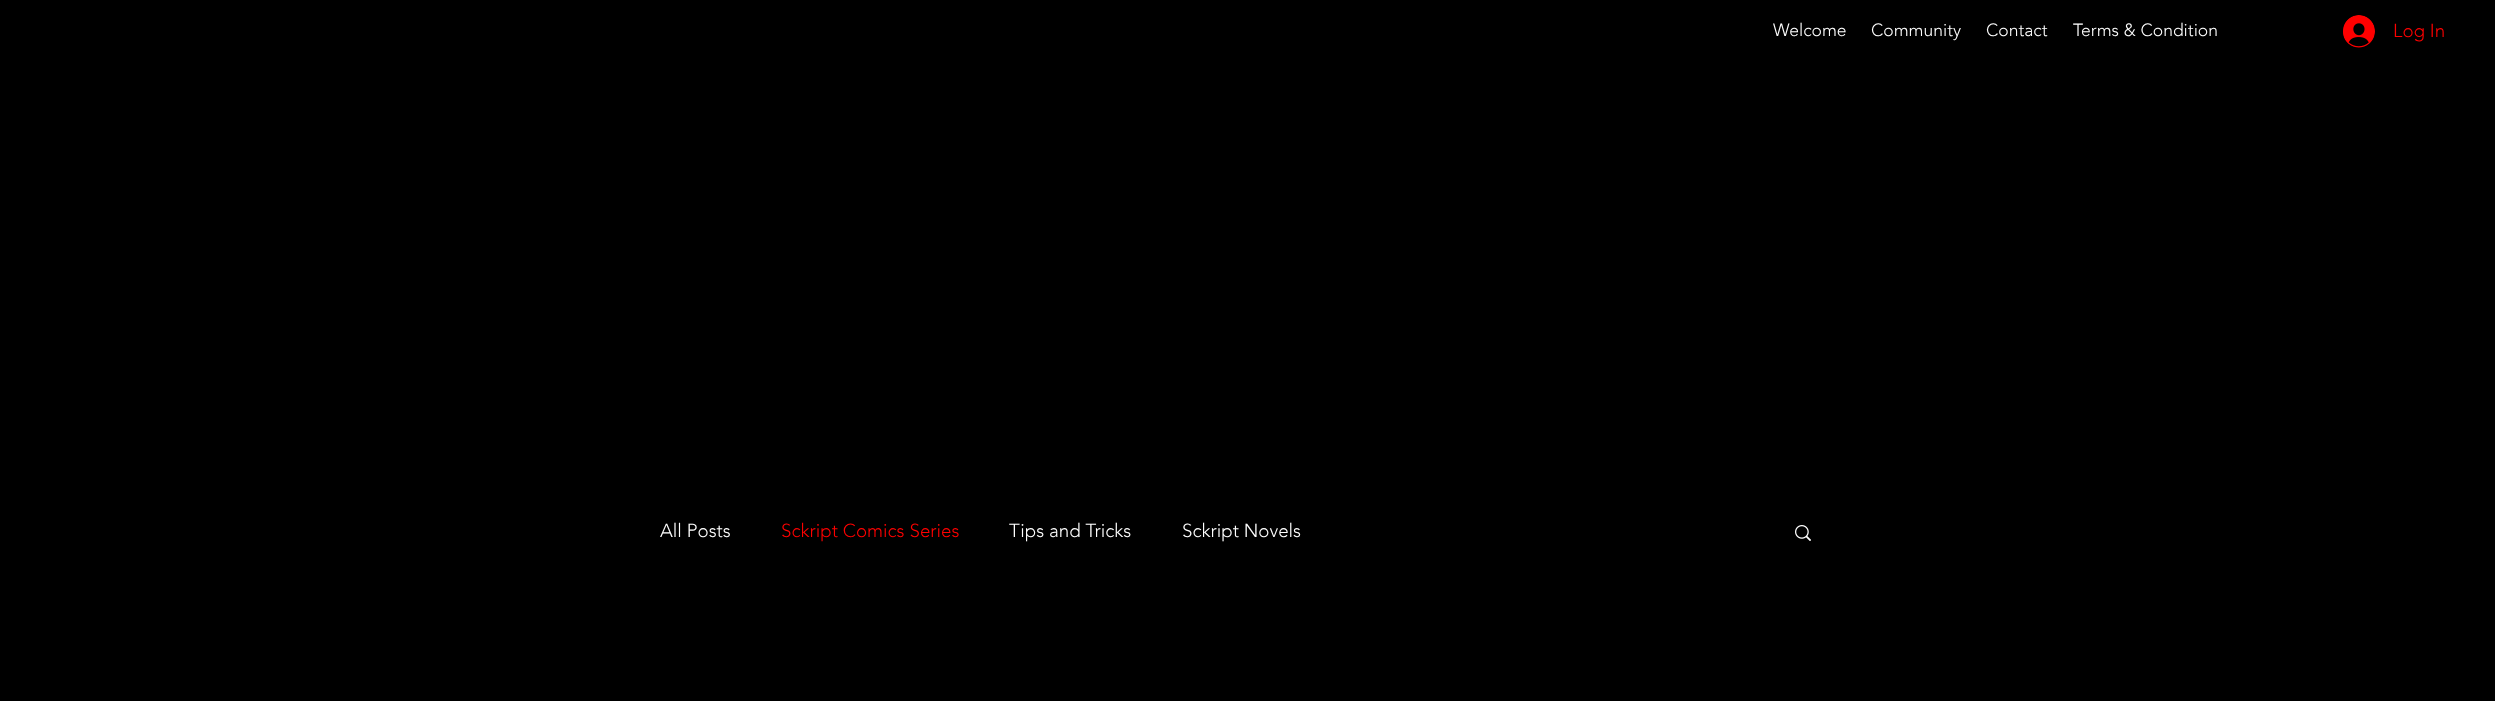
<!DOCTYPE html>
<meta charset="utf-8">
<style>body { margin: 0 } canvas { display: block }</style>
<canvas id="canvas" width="2495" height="701"></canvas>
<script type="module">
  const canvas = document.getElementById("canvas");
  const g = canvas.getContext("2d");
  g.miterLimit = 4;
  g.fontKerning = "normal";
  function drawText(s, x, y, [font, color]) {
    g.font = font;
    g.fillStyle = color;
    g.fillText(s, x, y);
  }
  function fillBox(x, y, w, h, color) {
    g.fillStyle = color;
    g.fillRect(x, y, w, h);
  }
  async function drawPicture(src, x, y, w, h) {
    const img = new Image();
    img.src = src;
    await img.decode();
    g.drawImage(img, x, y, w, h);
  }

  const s1 = ["300 17.5px 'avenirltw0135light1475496'", "#FFFFFF"];
  const s2 = ["300 18.75px 'avenirltw0135light1475496'", "#FF0000"];
  const s3 = ["300 18.75px 'avenirltw0135light1475496'", "#FFFFFF"];

  fillBox(0, 0, 2495, 701, "#000000");
  drawText("Welcome", 1773, 36, s1);
  drawText("Community", 1871, 36, s1);
  drawText("Contact", 1986, 36, s1);
  drawText("Terms & Condition", 2073, 36, s1);
  await drawPicture("pic1.png", 2343, 15, 32, 33);
  drawText("Log In", 2393, 37, s2);
  drawText("All Posts", 660, 537, s3);
  drawText("Sckript Comics Series", 781, 537, s2);
  drawText("Tips and Tricks", 1009, 537, s3);
  drawText("Sckript Novels", 1182, 537, s3);
  await drawPicture("pic2.png", 1795, 525, 16, 16);
</script>
